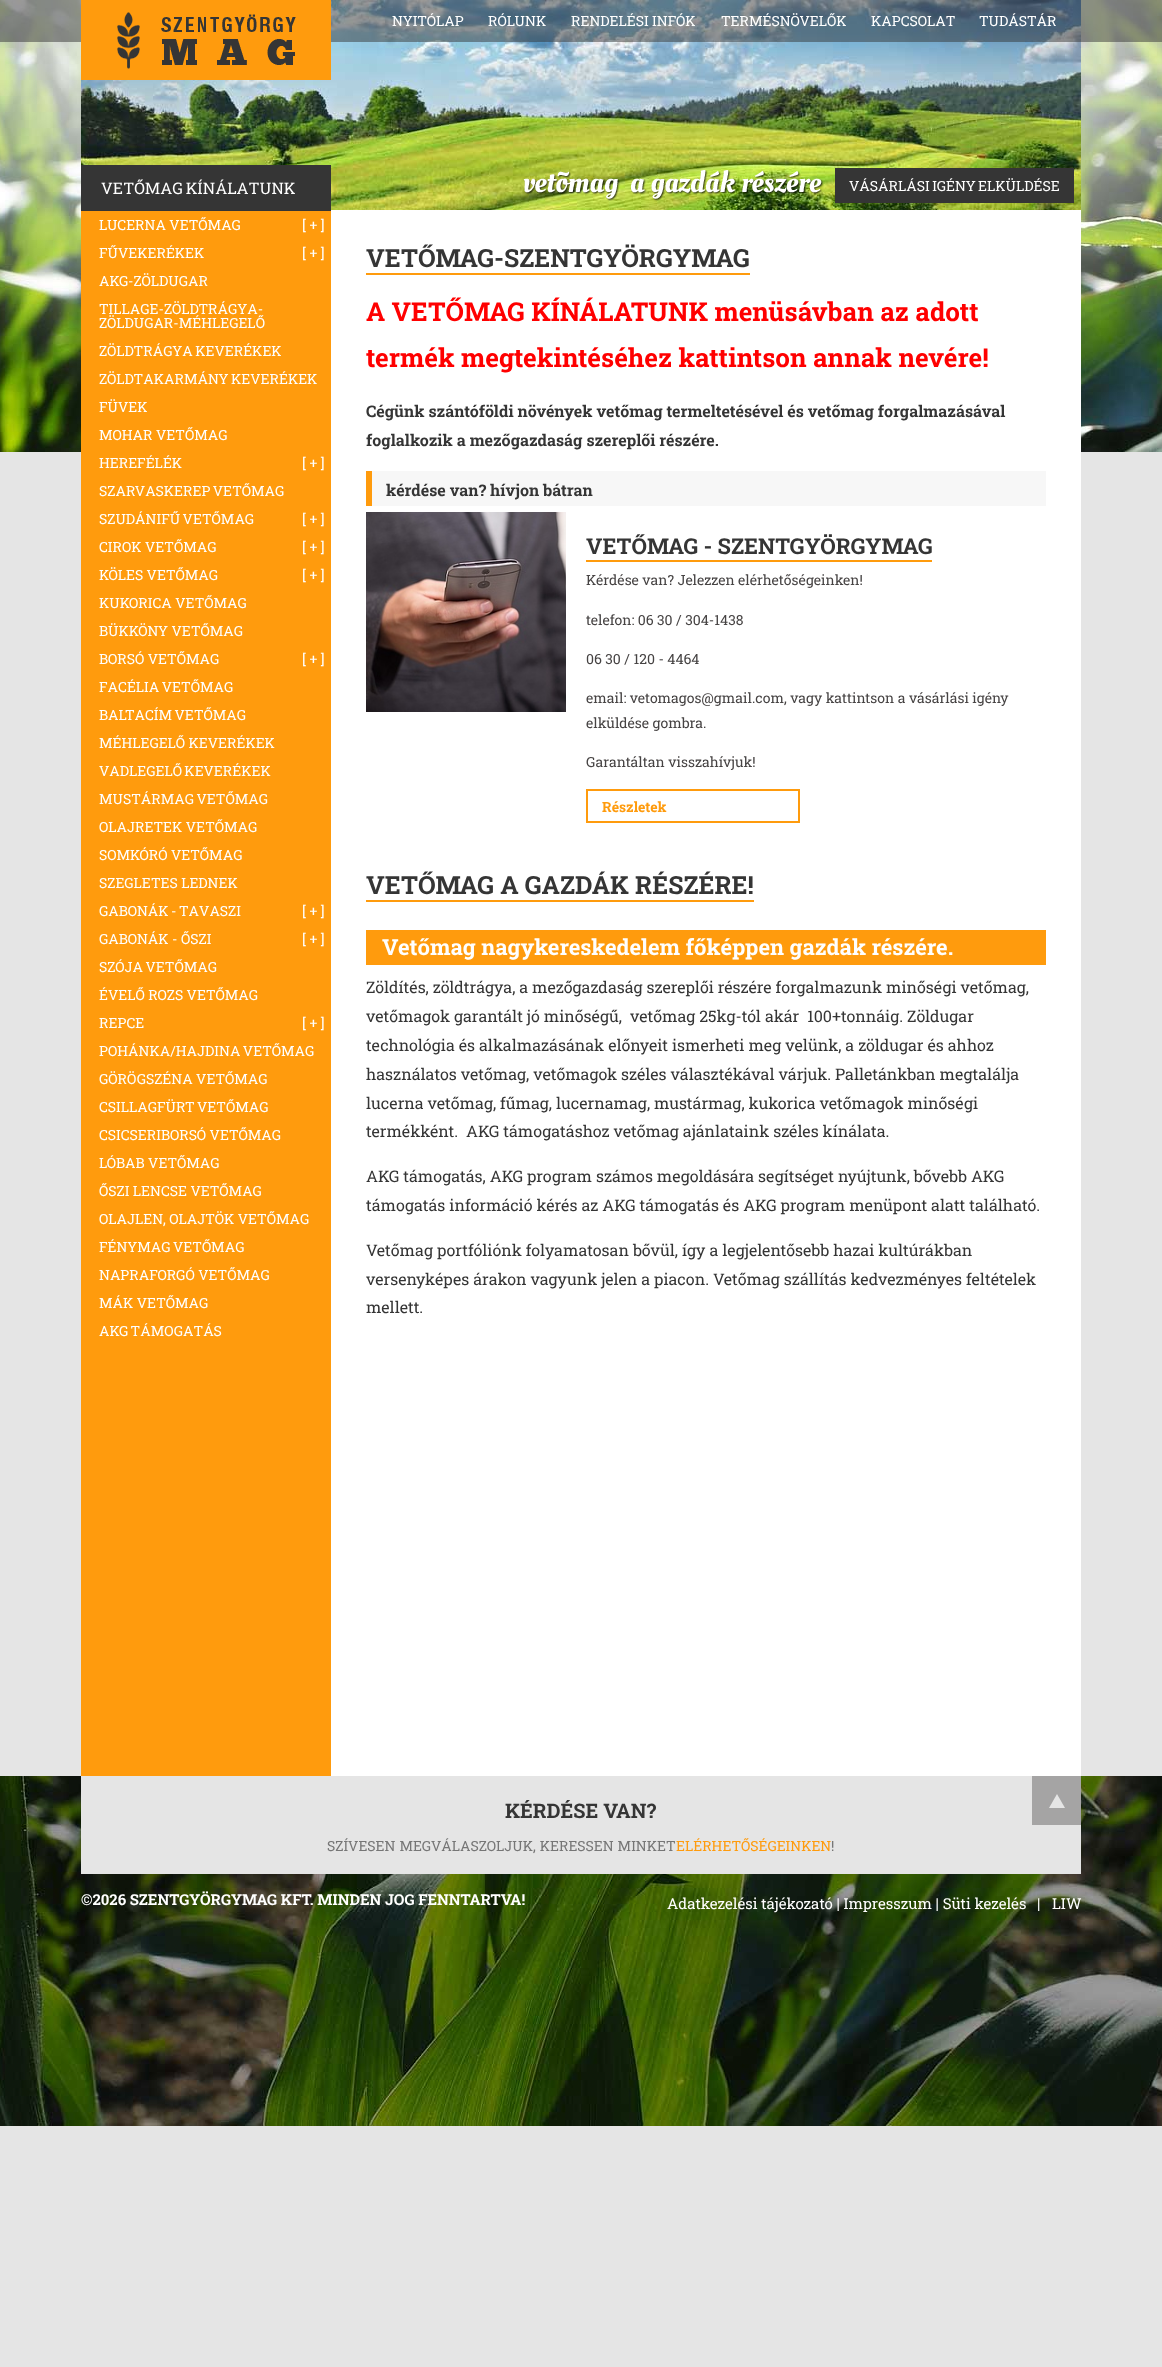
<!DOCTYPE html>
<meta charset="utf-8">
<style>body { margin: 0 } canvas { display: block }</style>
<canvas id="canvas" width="1162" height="2367"></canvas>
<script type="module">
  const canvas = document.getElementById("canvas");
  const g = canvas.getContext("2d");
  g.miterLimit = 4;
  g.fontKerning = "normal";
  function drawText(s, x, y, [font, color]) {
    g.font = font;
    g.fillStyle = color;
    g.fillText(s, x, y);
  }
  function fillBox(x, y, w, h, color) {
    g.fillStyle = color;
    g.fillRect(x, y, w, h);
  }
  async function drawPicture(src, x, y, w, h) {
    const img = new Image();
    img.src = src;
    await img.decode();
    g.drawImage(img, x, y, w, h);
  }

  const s1 = ["14px Roboto Slab", "#FFFFFF"];
  const s2 = ["16px Roboto Slab", "#FFFFFF"];
  const s3 = ["bold 25px Roboto Slab", "#353535"];
  const s4 = ["bold 26px Roboto Slab", "#FF0000"];
  const s5 = ["bold 16px Roboto Slab", "#353535"];
  const s6 = ["bold 21.9px Roboto Slab", "#353535"];
  const s7 = ["14px Roboto Slab", "#464343"];
  const s8 = ["bold 14px Roboto Slab", "#FF9B0D"];
  const s9 = ["bold 22px Roboto Slab", "#FFFFFF"];
  const s10 = ["16px Roboto Slab", "#353535"];
  const s11 = ["bold 20px Roboto Slab", "#353535"];
  const s12 = ["14px Roboto Slab", "#767676"];
  const s13 = ["14px Roboto Slab", "#FF9B0D"];
  const s14 = ["bold 15px Roboto Slab", "#FFFFFF"];
  const s15 = ["15px Roboto Slab", "#FFFFFF"];

  fillBox(0, 0, 1162, 2367, "#E5E5E5");
  await drawPicture("pic1.png", 0, 0, 1162, 452);
  await drawPicture("pic2.png", 81, 0, 1000, 210);
  fillBox(0, 0, 1162, 42, "rgba(53, 53, 53, 0.5)");
  drawText("NYITÓLAP", 392, 26, s1);
  drawText("RÓLUNK", 488, 26, s1);
  drawText("RENDELÉSI INFÓK", 571, 26, s1);
  drawText("TERMÉSNÖVELŐK", 721, 26, s1);
  drawText("KAPCSOLAT", 871, 26, s1);
  drawText("TUDÁSTÁR", 979, 26, s1);
  fillBox(81, 0, 250, 80, "#FF9B0D");
  await drawPicture("pic3.png", 117, 12, 179, 57);
  await drawPicture("pic4.png", 523, 170, 301, 31);
  fillBox(835, 168, 239, 35, "#353535");
  g.wordSpacing = "-1px";
  drawText("VÁSÁRLÁSI IGÉNY ELKÜLDÉSE", 849, 191, s1);
  fillBox(331, 210, 750, 1566, "#FFFFFF");
  fillBox(81, 165, 250, 46, "#353535");
  drawText("VETŐMAG KÍNÁLATUNK", 101, 194, s2);
  fillBox(81, 211, 250, 1565, "#FF9B0D");
  g.wordSpacing = "0px";
  drawText("LUCERNA VETŐMAG", 99, 230, s1);
  drawText("[ + ]", 302, 230, s1);
  drawText("FŰVEKERÉKEK", 99, 258, s1);
  drawText("[ + ]", 302, 258, s1);
  drawText("AKG-ZÖLDUGAR", 99, 286, s1);
  drawText("TILLAGE-ZÖLDTRÁGYA-", 99, 314, s1);
  drawText("ZÖLDUGAR-MÉHLEGELŐ", 99, 328, s1);
  g.wordSpacing = "-1px";
  drawText("ZÖLDTRÁGYA KEVERÉKEK", 99, 356, s1);
  drawText("ZÖLDTAKARMÁNY KEVERÉKEK", 99, 384, s1);
  g.wordSpacing = "0px";
  drawText("FÜVEK", 99, 412, s1);
  drawText("MOHAR VETŐMAG", 99, 440, s1);
  drawText("HEREFÉLÉK", 99, 468, s1);
  drawText("[ + ]", 302, 468, s1);
  g.wordSpacing = "-1px";
  drawText("SZARVASKEREP VETŐMAG", 99, 496, s1);
  drawText("SZUDÁNIFŰ VETŐMAG", 99, 524, s1);
  g.wordSpacing = "0px";
  drawText("[ + ]", 302, 524, s1);
  drawText("CIROK VETŐMAG", 99, 552, s1);
  drawText("[ + ]", 302, 552, s1);
  drawText("KÖLES VETŐMAG", 99, 580, s1);
  drawText("[ + ]", 302, 580, s1);
  drawText("KUKORICA VETŐMAG", 99, 608, s1);
  drawText("BÜKKÖNY VETŐMAG", 99, 636, s1);
  drawText("BORSÓ VETŐMAG", 99, 664, s1);
  drawText("[ + ]", 302, 664, s1);
  g.wordSpacing = "-1px";
  drawText("FACÉLIA VETŐMAG", 99, 692, s1);
  drawText("BALTACÍM VETŐMAG", 99, 720, s1);
  g.wordSpacing = "0px";
  drawText("MÉHLEGELŐ KEVERÉKEK", 99, 748, s1);
  g.wordSpacing = "-1px";
  drawText("VADLEGELŐ KEVERÉKEK", 99, 776, s1);
  drawText("MUSTÁRMAG VETŐMAG", 99, 804, s1);
  g.wordSpacing = "0px";
  drawText("OLAJRETEK VETŐMAG", 99, 832, s1);
  drawText("SOMKÓRÓ VETŐMAG", 99, 860, s1);
  drawText("SZEGLETES LEDNEK", 99, 888, s1);
  g.wordSpacing = "-1px";
  drawText("GABONÁK - TAVASZI", 99, 916, s1);
  g.wordSpacing = "0px";
  drawText("[ + ]", 302, 916, s1);
  drawText("GABONÁK - ŐSZI", 99, 944, s1);
  drawText("[ + ]", 302, 944, s1);
  g.wordSpacing = "-1px";
  drawText("SZÓJA VETŐMAG", 99, 972, s1);
  g.wordSpacing = "0px";
  drawText("ÉVELŐ ROZS VETŐMAG", 99, 1000, s1);
  drawText("REPCE", 99, 1028, s1);
  drawText("[ + ]", 302, 1028, s1);
  g.wordSpacing = "-1px";
  drawText("POHÁNKA/HAJDINA VETŐMAG", 99, 1056, s1);
  g.wordSpacing = "0px";
  drawText("GÖRÖGSZÉNA VETŐMAG", 99, 1084, s1);
  g.wordSpacing = "-1px";
  drawText("CSILLAGFÜRT VETŐMAG", 99, 1112, s1);
  g.wordSpacing = "0px";
  drawText("CSICSERIBORSÓ VETŐMAG", 99, 1140, s1);
  drawText("LÓBAB VETŐMAG", 99, 1168, s1);
  drawText("ŐSZI LENCSE VETŐMAG", 99, 1196, s1);
  drawText("OLAJLEN, OLAJTÖK VETŐMAG", 99, 1224, s1);
  g.wordSpacing = "-1px";
  drawText("FÉNYMAG VETŐMAG", 99, 1252, s1);
  g.wordSpacing = "0px";
  drawText("NAPRAFORGÓ VETŐMAG", 99, 1280, s1);
  drawText("MÁK VETŐMAG", 99, 1308, s1);
  g.wordSpacing = "-1px";
  drawText("AKG TÁMOGATÁS", 99, 1336, s1);
  fillBox(366, 273, 384, 2, "#FF9B0D");
  g.wordSpacing = "0px";
  drawText("VETŐMAG-SZENTGYÖRGYMAG", 366, 267, s3);
  drawText("A VETŐMAG KÍNÁLATUNK menüsávban az adott", 366, 321, s4);
  drawText("termék megtekintéséhez kattintson annak nevére!", 366, 367, s4);
  drawText("Cégünk szántóföldi növények vetőmag termeltetésével és vetőmag forgalmazásával", 366, 417, s5);
  drawText("foglalkozik a mezőgazdaság szereplői részére.", 366, 446, s5);
  fillBox(372, 471, 674, 35, "#F7F7F7");
  fillBox(366, 471, 6, 35, "#FF9B0D");
  drawText("kérdése van? hívjon bátran", 386, 496, s5);
  await drawPicture("pic5.png", 366, 512, 200, 200);
  fillBox(586, 560, 346, 2, "#FF9B0D");
  drawText("VETŐMAG - SZENTGYÖRGYMAG", 586, 554, s6);
  drawText("Kérdése van? Jelezzen elérhetőségeinken!", 586, 585, s7);
  drawText("telefon: 06 30 / 304-1438", 586, 625, s7);
  drawText("06 30 / 120 - 4464", 586, 664, s7);
  drawText("email: vetomagos@gmail.com, vagy kattintson a vásárlási igény", 586, 703, s7);
  drawText("elküldése gombra.", 586, 728, s7);
  drawText("Garantáltan visszahívjuk!", 586, 767, s7);
  g.strokeStyle = "#FF9B0D";
  g.lineWidth = 2;
  g.strokeRect(587, 790, 212, 32);
  drawText("Részletek", 602, 812, s8);
  fillBox(366, 900, 388, 2, "#FF9B0D");
  drawText("VETŐMAG A GAZDÁK RÉSZÉRE!", 366, 894, s3);
  fillBox(366, 930, 680, 35, "#FF9B0D");
  drawText("Vetőmag nagykereskedelem főképpen gazdák részére.", 382, 955, s9);
  drawText("Zöldítés, zöldtrágya, a mezőgazdaság szereplői részére forgalmazunk minőségi vetőmag,", 366, 993, s10);
  drawText("vetőmagok garantált jó minőségű,  vetőmag 25kg-tól akár  100+tonnáig. Zöldugar", 366, 1022, s10);
  drawText("technológia és alkalmazásának előnyeit ismerheti meg velünk, a zöldugar és ahhoz", 366, 1051, s10);
  drawText("használatos vetőmag, vetőmagok széles választékával várjuk. Palletánkban megtalálja", 366, 1080, s10);
  drawText("lucerna vetőmag, fűmag, lucernamag, mustármag, kukorica vetőmagok minőségi", 366, 1109, s10);
  drawText("termékként.  AKG támogatáshoz vetőmag ajánlataink széles kínálata.", 366, 1137, s10);
  drawText("AKG támogatás, AKG program számos megoldására segítséget nyújtunk, bővebb AKG", 366, 1182, s10);
  drawText("támogatás információ kérés az AKG támogatás és AKG program menüpont alatt található.", 366, 1211, s10);
  drawText("Vetőmag portfóliónk folyamatosan bővül, így a legjelentősebb hazai kultúrákban", 366, 1256, s10);
  drawText("versenyképes árakon vagyunk jelen a piacon. Vetőmag szállítás kedvezményes feltételek", 366, 1285, s10);
  drawText("mellett.", 366, 1313, s10);
  await drawPicture("pic6.png", 0, 1776, 1162, 350);
  fillBox(81, 1776, 1000, 98, "#E5E5E5");
  drawText("KÉRDÉSE VAN?", 505, 1818, s11);
  fillBox(1032, 1776, 49, 49, "#A5A4A4");
  g.fillStyle = "#E5E5E5";
  g.beginPath();
  g.moveTo(1065, 1808);
  g.lineTo(1049, 1808);
  g.lineTo(1057, 1794);
  g.closePath();
  g.fill();
  g.wordSpacing = "0.5px";
  drawText("SZÍVESEN MEGVÁLASZOLJUK, KERESSEN MINKET", 327, 1851, s12);
  g.wordSpacing = "0px";
  drawText("ELÉRHETŐSÉGEINKEN", 676, 1851, s13);
  drawText("!", 831, 1851, s12);
  drawText("©2026 SZENTGYÖRGYMAG KFT. MINDEN JOG FENNTARTVA!", 81, 1905, s14);
  drawText("Adatkezelési tájékozató | Impresszum | Süti kezelés", 667, 1909, s15);
  drawText("|", 1037, 1909, s15);
  drawText("LIW", 1052, 1909, s15);
</script>
